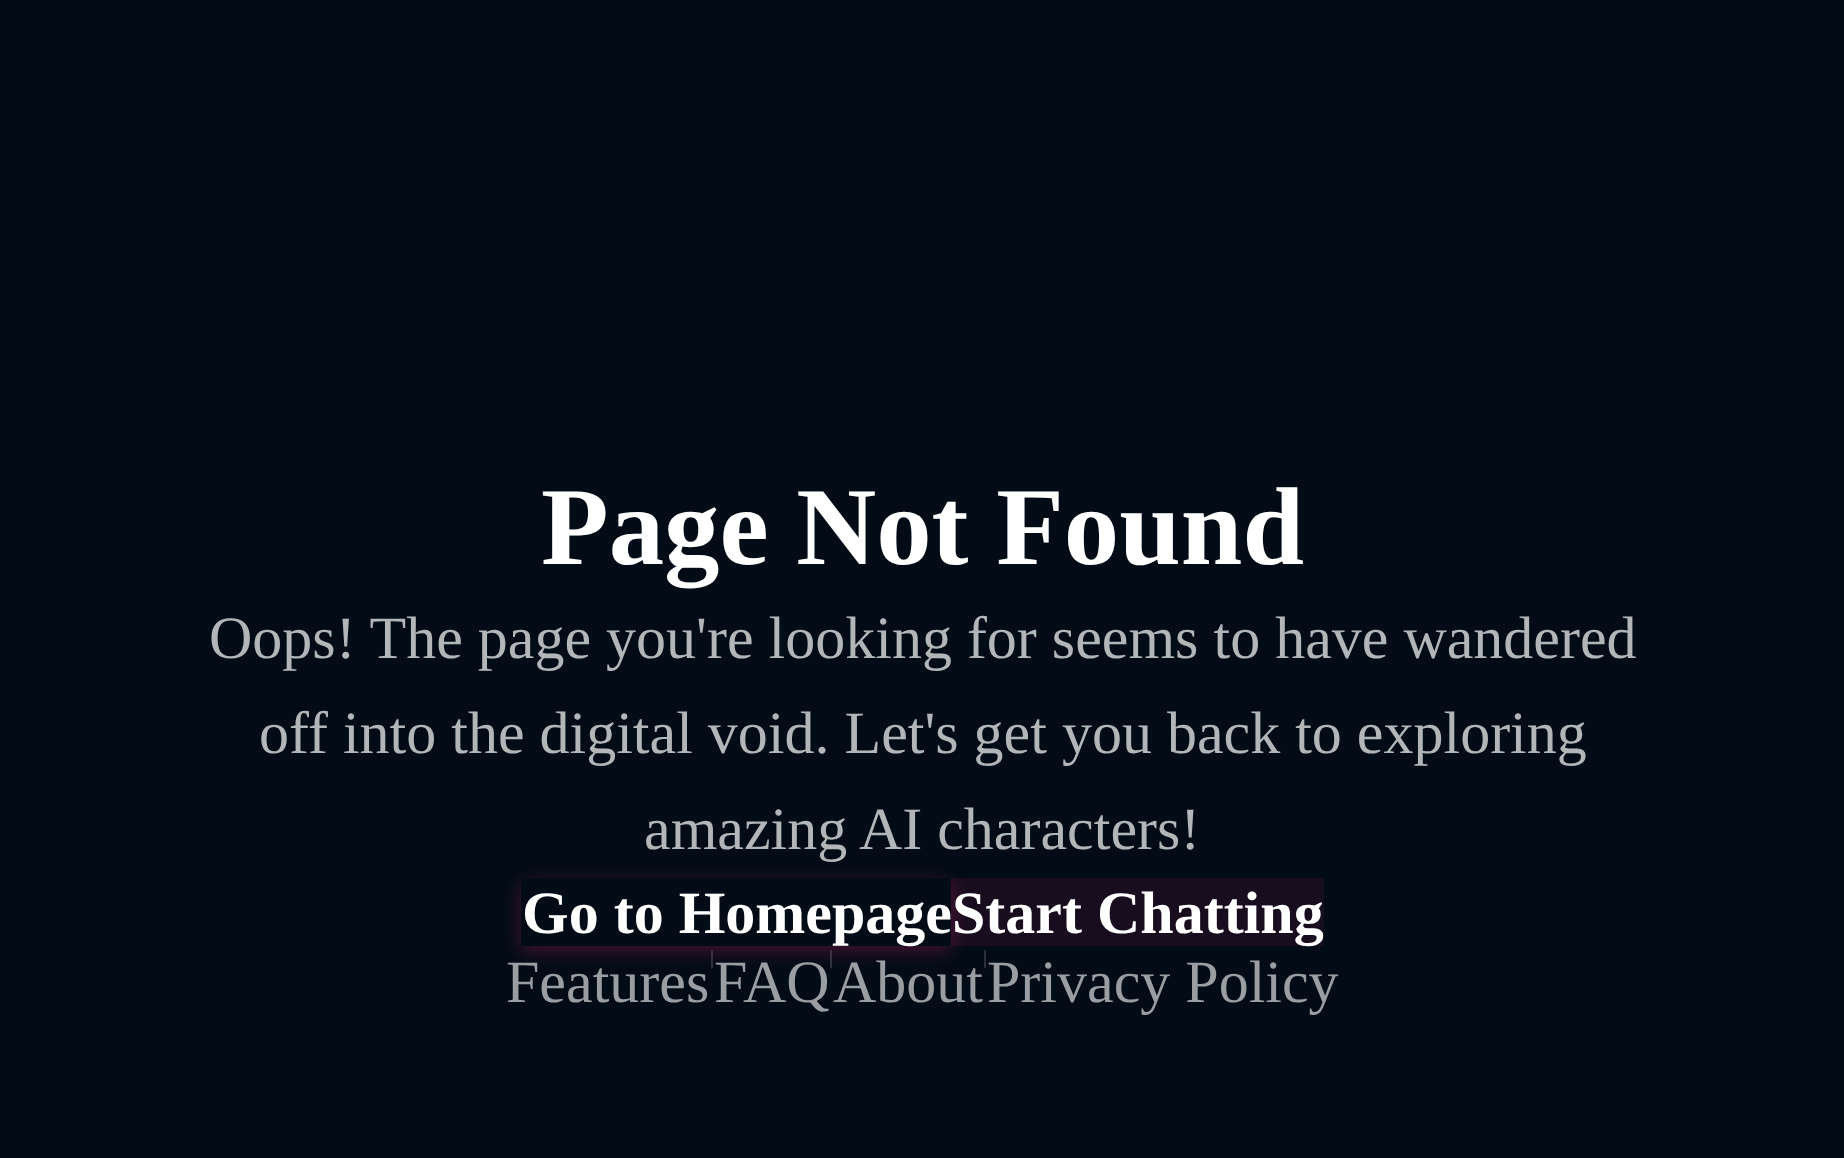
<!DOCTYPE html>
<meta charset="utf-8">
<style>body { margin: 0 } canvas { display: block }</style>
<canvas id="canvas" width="1844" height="1158"></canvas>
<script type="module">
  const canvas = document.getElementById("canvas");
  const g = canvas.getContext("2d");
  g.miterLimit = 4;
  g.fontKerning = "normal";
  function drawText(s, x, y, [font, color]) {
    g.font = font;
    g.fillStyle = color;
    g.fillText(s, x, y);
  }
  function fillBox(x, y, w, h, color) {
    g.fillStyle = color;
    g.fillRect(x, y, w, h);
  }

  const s1 = ["bold 110.75px Liberation Serif", "#FFFFFF"];
  const s2 = ["60px Liberation Serif", "#B3B6B9"];
  const s3 = ["bold 60px Liberation Serif", "#FFFFFF"];
  const s4 = ["60px Liberation Serif", "#9A9EA2"];
  const s5 = ["20px Liberation Serif", "#585660"];
  const s6 = ["20px Liberation Serif", "#4E555C"];

  fillBox(0, 0, 1844, 1158, "#020C16");
  drawText("Page Not Found", 541, 564, s1);
  drawText("Oops! The page you're looking for seems to have wandered", 209, 658, s2);
  drawText("off into the digital void. Let's get you back to exploring", 259, 753, s2);
  drawText("amazing AI characters!", 644, 849, s2);
  g.save();
  g.beginPath();
  g.moveTo(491, 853);
  g.lineTo(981, 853);
  g.lineTo(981, 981);
  g.lineTo(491, 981);
  g.closePath();
  g.moveTo(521, 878);
  g.lineTo(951, 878);
  g.lineTo(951, 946);
  g.lineTo(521, 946);
  g.closePath();
  g.clip("evenodd");
  g.fillStyle = "rgba(230, 33, 116, 0.3)";
  g.filter = "blur(9.5px)";
  g.beginPath();
  g.rect(521, 883, 430, 68);
  g.fill();
  g.filter = "none";
  g.restore();
  drawText("Go to Homepage", 522, 933, s3);
  fillBox(951, 878, 373, 68, "rgba(230, 33, 116, 0.1)");
  drawText("Start Chatting", 952, 933, s3);
  drawText("Features", 506, 1002, s4);
  drawText("|", 710, 964, s5);
  drawText("FAQ", 714, 1002, s4);
  drawText("|", 829, 964, s5);
  drawText("About", 833, 1002, s4);
  drawText("|", 983, 964, s6);
  drawText("Privacy Policy", 987, 1002, s4);
</script>
